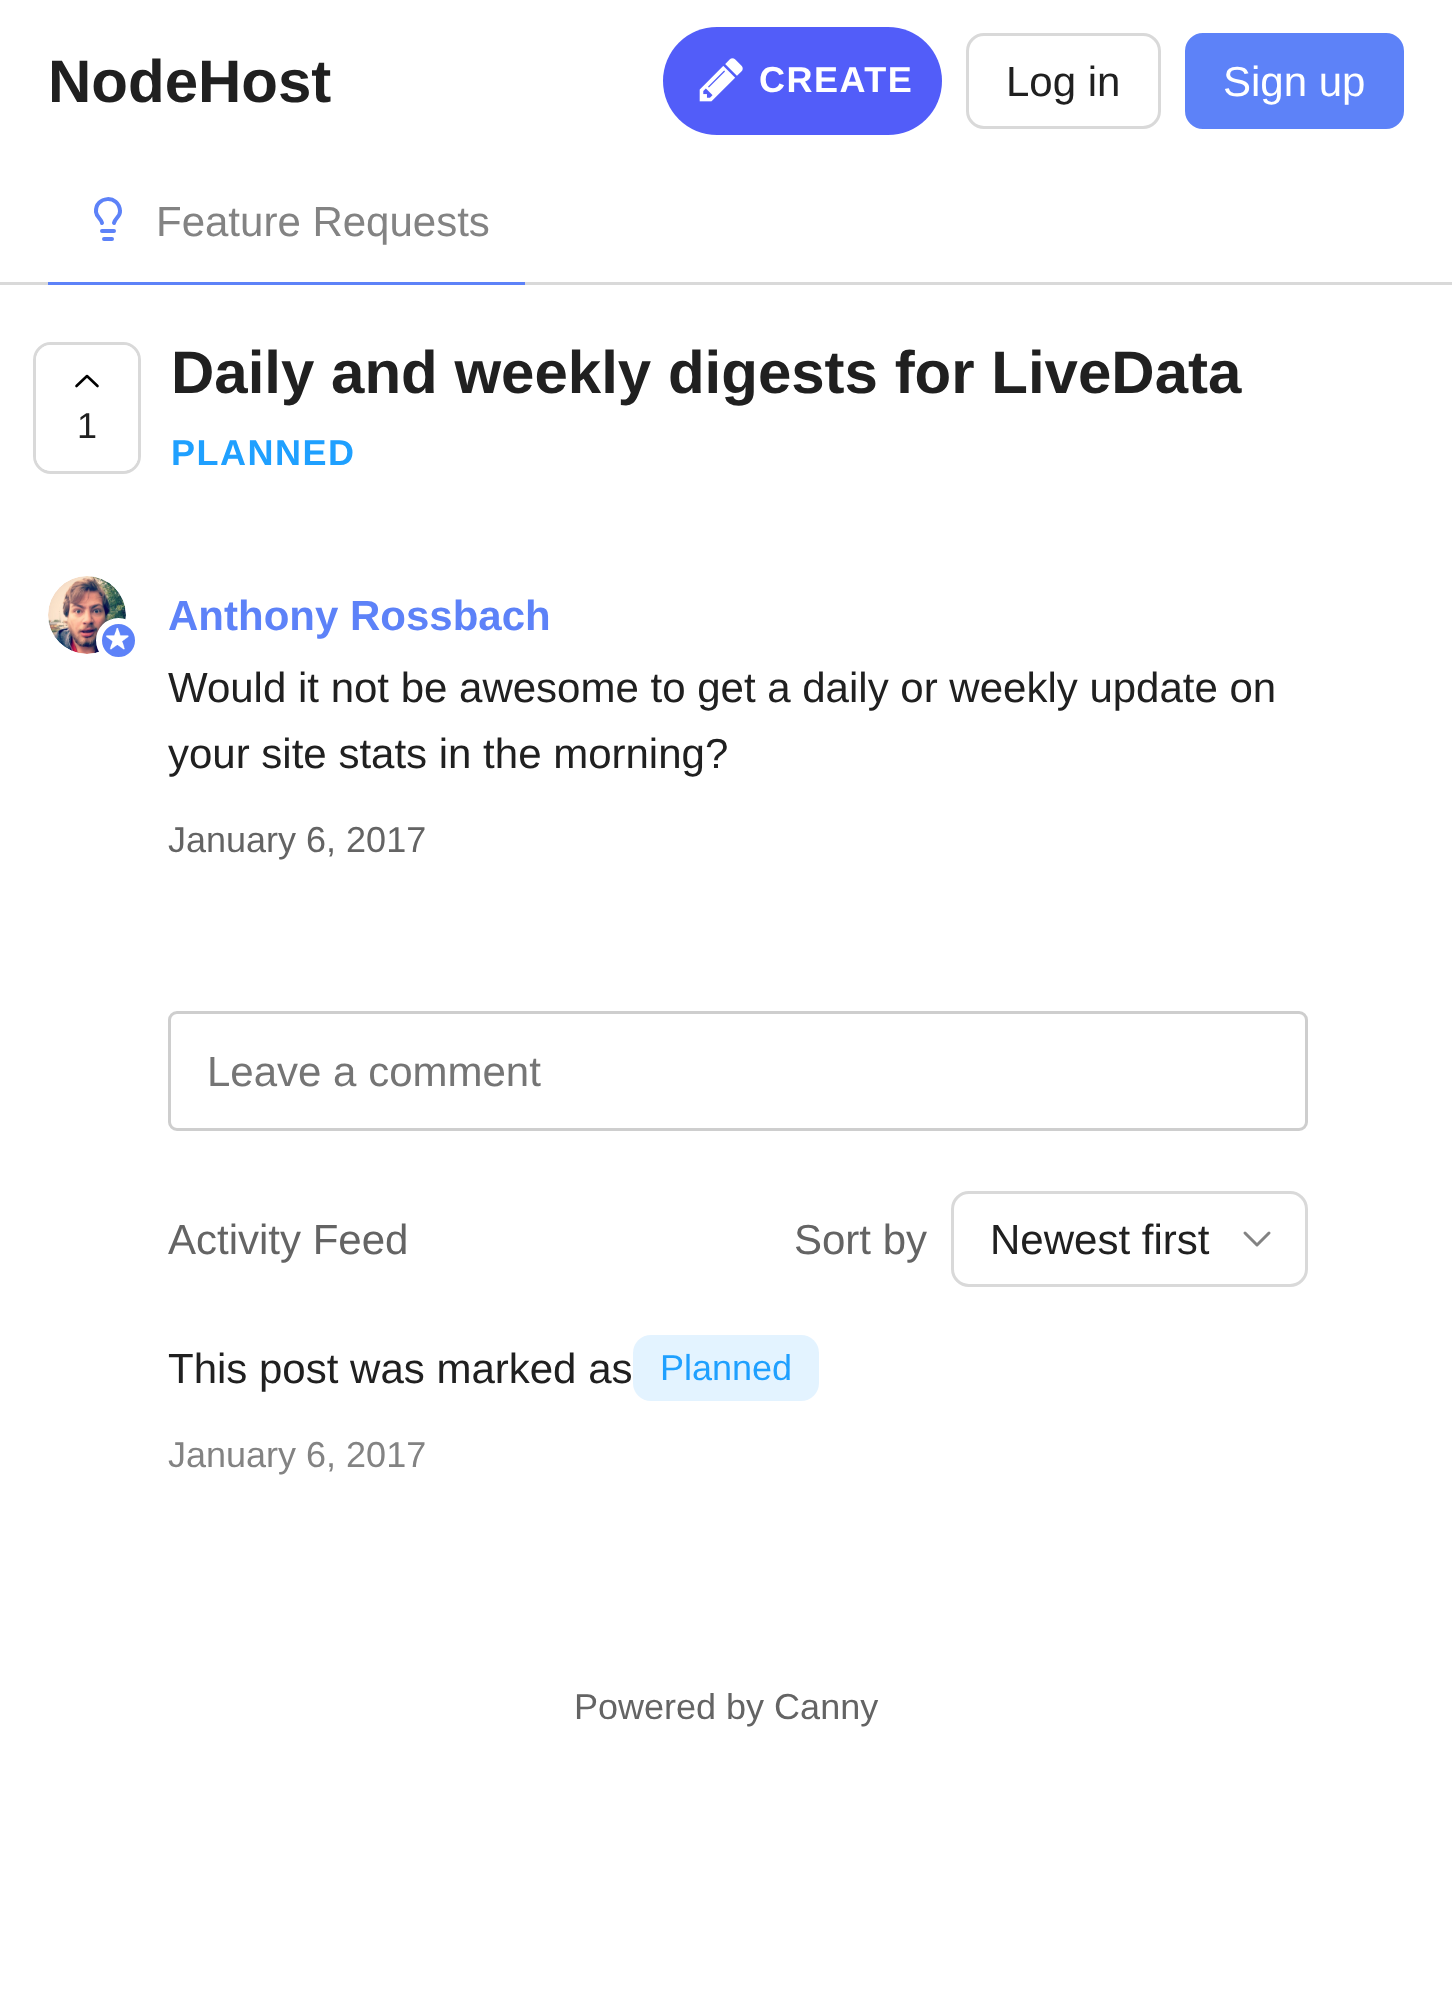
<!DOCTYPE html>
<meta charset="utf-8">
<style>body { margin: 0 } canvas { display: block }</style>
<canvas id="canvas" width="1452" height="2004"></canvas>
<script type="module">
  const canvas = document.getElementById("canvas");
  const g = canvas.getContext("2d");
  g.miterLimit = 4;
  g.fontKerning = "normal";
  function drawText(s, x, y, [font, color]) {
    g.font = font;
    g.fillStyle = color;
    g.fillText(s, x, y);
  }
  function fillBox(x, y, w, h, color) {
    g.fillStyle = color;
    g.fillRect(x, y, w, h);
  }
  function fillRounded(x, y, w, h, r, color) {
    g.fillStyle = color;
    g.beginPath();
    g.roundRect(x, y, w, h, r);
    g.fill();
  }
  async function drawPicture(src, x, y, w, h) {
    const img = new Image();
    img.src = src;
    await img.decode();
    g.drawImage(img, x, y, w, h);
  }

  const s1 = ["bold 60px Liberation Sans", "#202020"];
  const s2 = ["bold 36px Liberation Sans", "#FFFFFF"];
  const s3 = ["42px Liberation Sans", "#202020"];
  const s4 = ["42px Liberation Sans", "#FFFFFF"];
  const s5 = ["42px Liberation Sans", "#838383"];
  const s6 = ["36px Liberation Sans", "#202020"];
  const s7 = ["bold 36px Liberation Sans", "#1FA0FF"];
  const s8 = ["bold 42px Liberation Sans", "#5D82F8"];
  const s9 = ["36px Liberation Sans", "#646464"];
  const s10 = ["42px Liberation Sans", "#757575"];
  const s11 = ["42px Liberation Sans", "#646464"];
  const s12 = ["36px Liberation Sans", "#1FA0FF"];
  const s13 = ["36px Liberation Sans", "#838383"];

  fillBox(0, 0, 1452, 2004, "#FFFFFF");
  fillBox(0, 282, 1452, 3, "#D9D9D9");
  drawText("NodeHost", 48, 102, s1);
  fillRounded(663, 27, 279, 108, 54, "#525DF9");
  await drawPicture("pic1.png", 699, 58, 44, 44);
  g.letterSpacing = "1.5px";
  drawText("CREATE", 759, 92, s2);
  g.beginPath();
  g.roundRect(967.5, 34.5, 192, 93, 16.5);
  g.strokeStyle = "#D9D9D9";
  g.lineWidth = 3;
  g.stroke();
  g.letterSpacing = "0px";
  drawText("Log in", 1006, 96, s3);
  g.fillStyle = "#5D82F8";
  g.beginPath();
  g.roundRect(1186.5, 34.5, 216, 93, 16.5);
  g.fill();
  g.strokeStyle = "#5D82F8";
  g.stroke();
  drawText("Sign up", 1223, 96, s4);
  fillBox(48, 282, 477, 3, "#5D82F8");
  g.beginPath();
  g.moveTo(114, 223);
  g.bezierCurveTo(115, 218, 120.5, 216.5, 120, 211);
  g.bezierCurveTo(119, 194, 95, 196, 96, 212);
  g.bezierCurveTo(96.5, 217, 101, 218.5, 102, 223);
  g.moveTo(102, 231);
  g.lineTo(114, 231);
  g.moveTo(104, 239);
  g.lineTo(112, 239);
  g.lineWidth = 4;
  g.lineCap = "round";
  g.lineJoin = "round";
  g.stroke();
  drawText("Feature Requests", 156, 236, s5);
  g.beginPath();
  g.roundRect(34.5, 343.5, 105, 129, 16.5);
  g.strokeStyle = "#D9D9D9";
  g.lineWidth = 3;
  g.lineJoin = "miter";
  g.stroke();
  fillRounded(36, 345, 102, 126, 15, "#FFFFFF");
  g.beginPath();
  g.moveTo(97.5, 386);
  g.lineTo(87, 376);
  g.lineTo(76.5, 386);
  g.strokeStyle = "#000000";
  g.lineWidth = 2.6;
  g.lineJoin = "round";
  g.stroke();
  drawText("1", 77, 438, s6);
  drawText("Daily and weekly digests for LiveData", 171, 393, s1);
  g.letterSpacing = "1.5px";
  drawText("PLANNED", 171, 465, s7);
  await drawPicture("pic2.png", 48, 576, 78, 78);
  g.fillStyle = "#5D82F8";
  g.beginPath();
  g.arc(118.5, 640.5, 19.5, 0, Math.PI * 2);
  g.fill();
  g.strokeStyle = "#FFFFFF";
  g.lineWidth = 6;
  g.stroke();
  await drawPicture("pic3.png", 106, 627, 23, 23);
  g.letterSpacing = "0px";
  drawText("Anthony Rossbach", 168, 630, s8);
  drawText("Would it not be awesome to get a daily or weekly update on", 168, 702, s3);
  drawText("your site stats in the morning?", 168, 768, s3);
  drawText("January 6, 2017", 168, 852, s9);
  g.beginPath();
  g.roundRect(169.5, 1012.5, 1137, 117, 7.5);
  g.strokeStyle = "#CECECE";
  g.lineWidth = 3;
  g.lineJoin = "miter";
  g.stroke();
  drawText("Leave a comment", 207, 1086, s10);
  drawText("Activity Feed", 168, 1254, s11);
  drawText("Sort by", 794, 1254, s11);
  g.beginPath();
  g.roundRect(952.5, 1192.5, 354, 93, 16.5);
  g.strokeStyle = "#D9D9D9";
  g.stroke();
  drawText("Newest first", 990, 1254, s3);
  g.beginPath();
  g.moveTo(1245, 1233);
  g.lineTo(1257, 1245);
  g.lineTo(1269, 1233);
  g.strokeStyle = "#838383";
  g.lineJoin = "round";
  g.stroke();
  drawText("This post was marked as", 168, 1383, s3);
  fillRounded(633, 1335, 186, 66, 18, "#E3F3FF");
  drawText("Planned", 660, 1380, s12);
  drawText("January 6, 2017", 168, 1467, s13);
  drawText("Powered by Canny", 574, 1719, s9);
</script>
